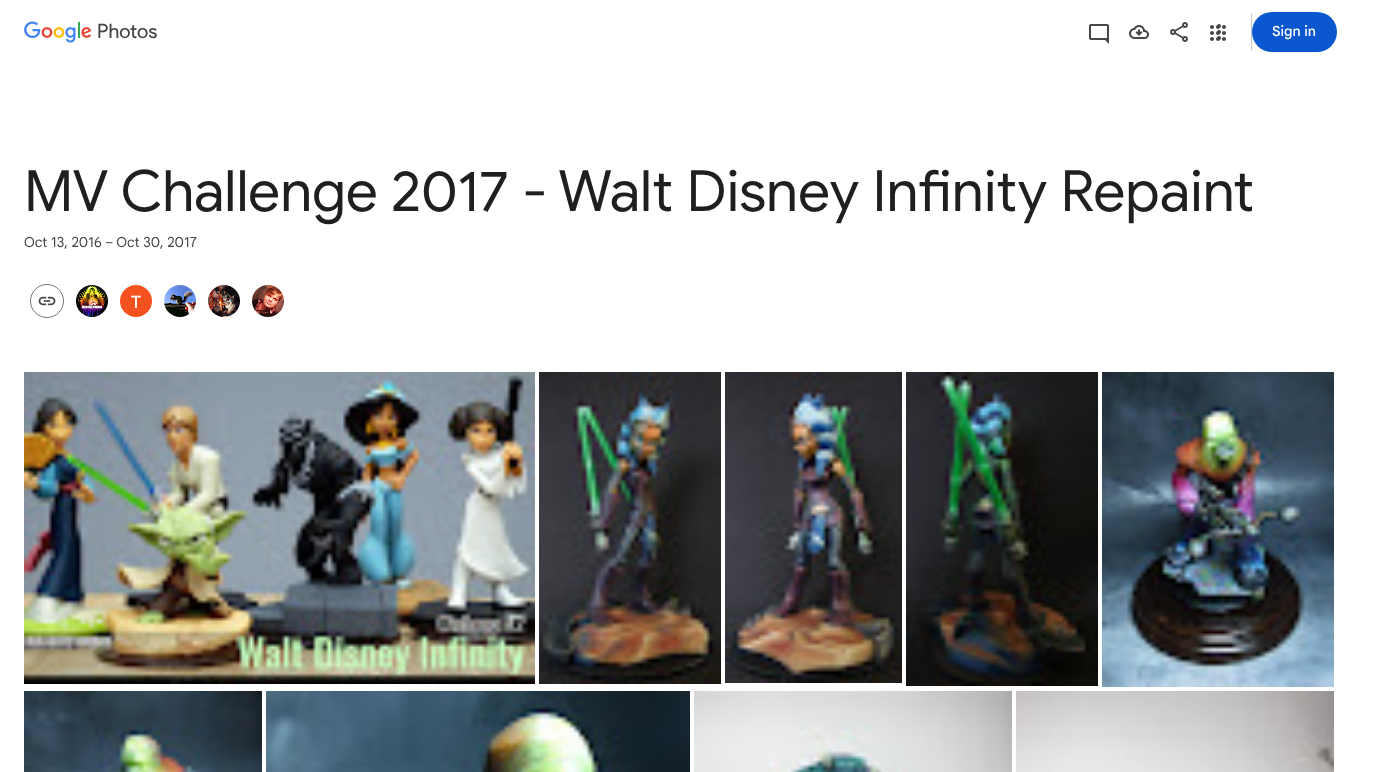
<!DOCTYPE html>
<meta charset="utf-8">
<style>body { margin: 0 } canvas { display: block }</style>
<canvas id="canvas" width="1373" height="772"></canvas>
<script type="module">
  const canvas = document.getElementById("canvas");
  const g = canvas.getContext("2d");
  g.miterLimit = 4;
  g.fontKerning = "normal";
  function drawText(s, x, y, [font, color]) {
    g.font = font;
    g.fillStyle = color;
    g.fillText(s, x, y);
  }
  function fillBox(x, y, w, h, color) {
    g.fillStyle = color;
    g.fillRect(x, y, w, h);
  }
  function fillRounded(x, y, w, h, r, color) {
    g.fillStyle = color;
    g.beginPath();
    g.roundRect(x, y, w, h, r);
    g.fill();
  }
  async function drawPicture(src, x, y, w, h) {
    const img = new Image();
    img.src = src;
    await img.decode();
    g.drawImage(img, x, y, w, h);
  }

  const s1 = ["20px Product Sans", "#444746"];
  const s2 = ["57px Google Sans", "#1F1F1F"];
  const s3 = ["14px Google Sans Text", "#444746"];
  const s4 = ["500 14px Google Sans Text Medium", "#FFFFFF"];

  fillBox(0, 0, 1373, 772, "#FFFFFF");
  await drawPicture("pic1.png", 24, 21, 68, 22);
  drawText("Photos", 97, 38, s1);
  await drawPicture("pic2.png", 1089, 24, 20, 20);
  await drawPicture("pic3.png", 1129, 25, 20, 14);
  await drawPicture("pic4.png", 1170, 22, 18, 20);
  await drawPicture("pic5.png", 1217, 24, 4, 16);
  fillBox(1251, 14, 1, 36, "#C4C7C5");
  drawText("MV Challenge 2017 - Walt Disney Infinity Repaint", 24, 211, s2);
  drawText("Oct 13, 2016 – Oct 30, 2017", 24, 247, s3);
  g.beginPath();
  g.arc(47, 301, 16.5, 0, Math.PI * 2);
  g.strokeStyle = "#747775";
  g.stroke();
  await drawPicture("pic6.png", 38, 296, 18, 10);
  await drawPicture("pic7.png", 76, 285, 32, 32);
  await drawPicture("pic8.png", 120, 285, 32, 32);
  await drawPicture("pic9.png", 164, 285, 32, 32);
  await drawPicture("pic10.png", 208, 285, 32, 32);
  await drawPicture("pic11.png", 252, 285, 32, 32);
  await drawPicture("pic12.png", 24, 372, 511, 312);
  await drawPicture("pic13.png", 539, 372, 182, 312);
  await drawPicture("pic14.png", 725, 372, 177, 311);
  await drawPicture("pic15.png", 906, 372, 192, 314);
  await drawPicture("pic16.png", 1102, 372, 232, 315);
  await drawPicture("pic17.png", 24, 691, 238, 81);
  await drawPicture("pic18.png", 266, 691, 424, 81);
  await drawPicture("pic19.png", 694, 691, 318, 81);
  await drawPicture("pic20.png", 1016, 691, 318, 81);
  await drawPicture("pic21.png", 1210, 25, 16, 16);
  fillRounded(1252, 12, 85, 40, 20, "#0B57D0");
  drawText("Sign in", 1272, 36, s4);
</script>
